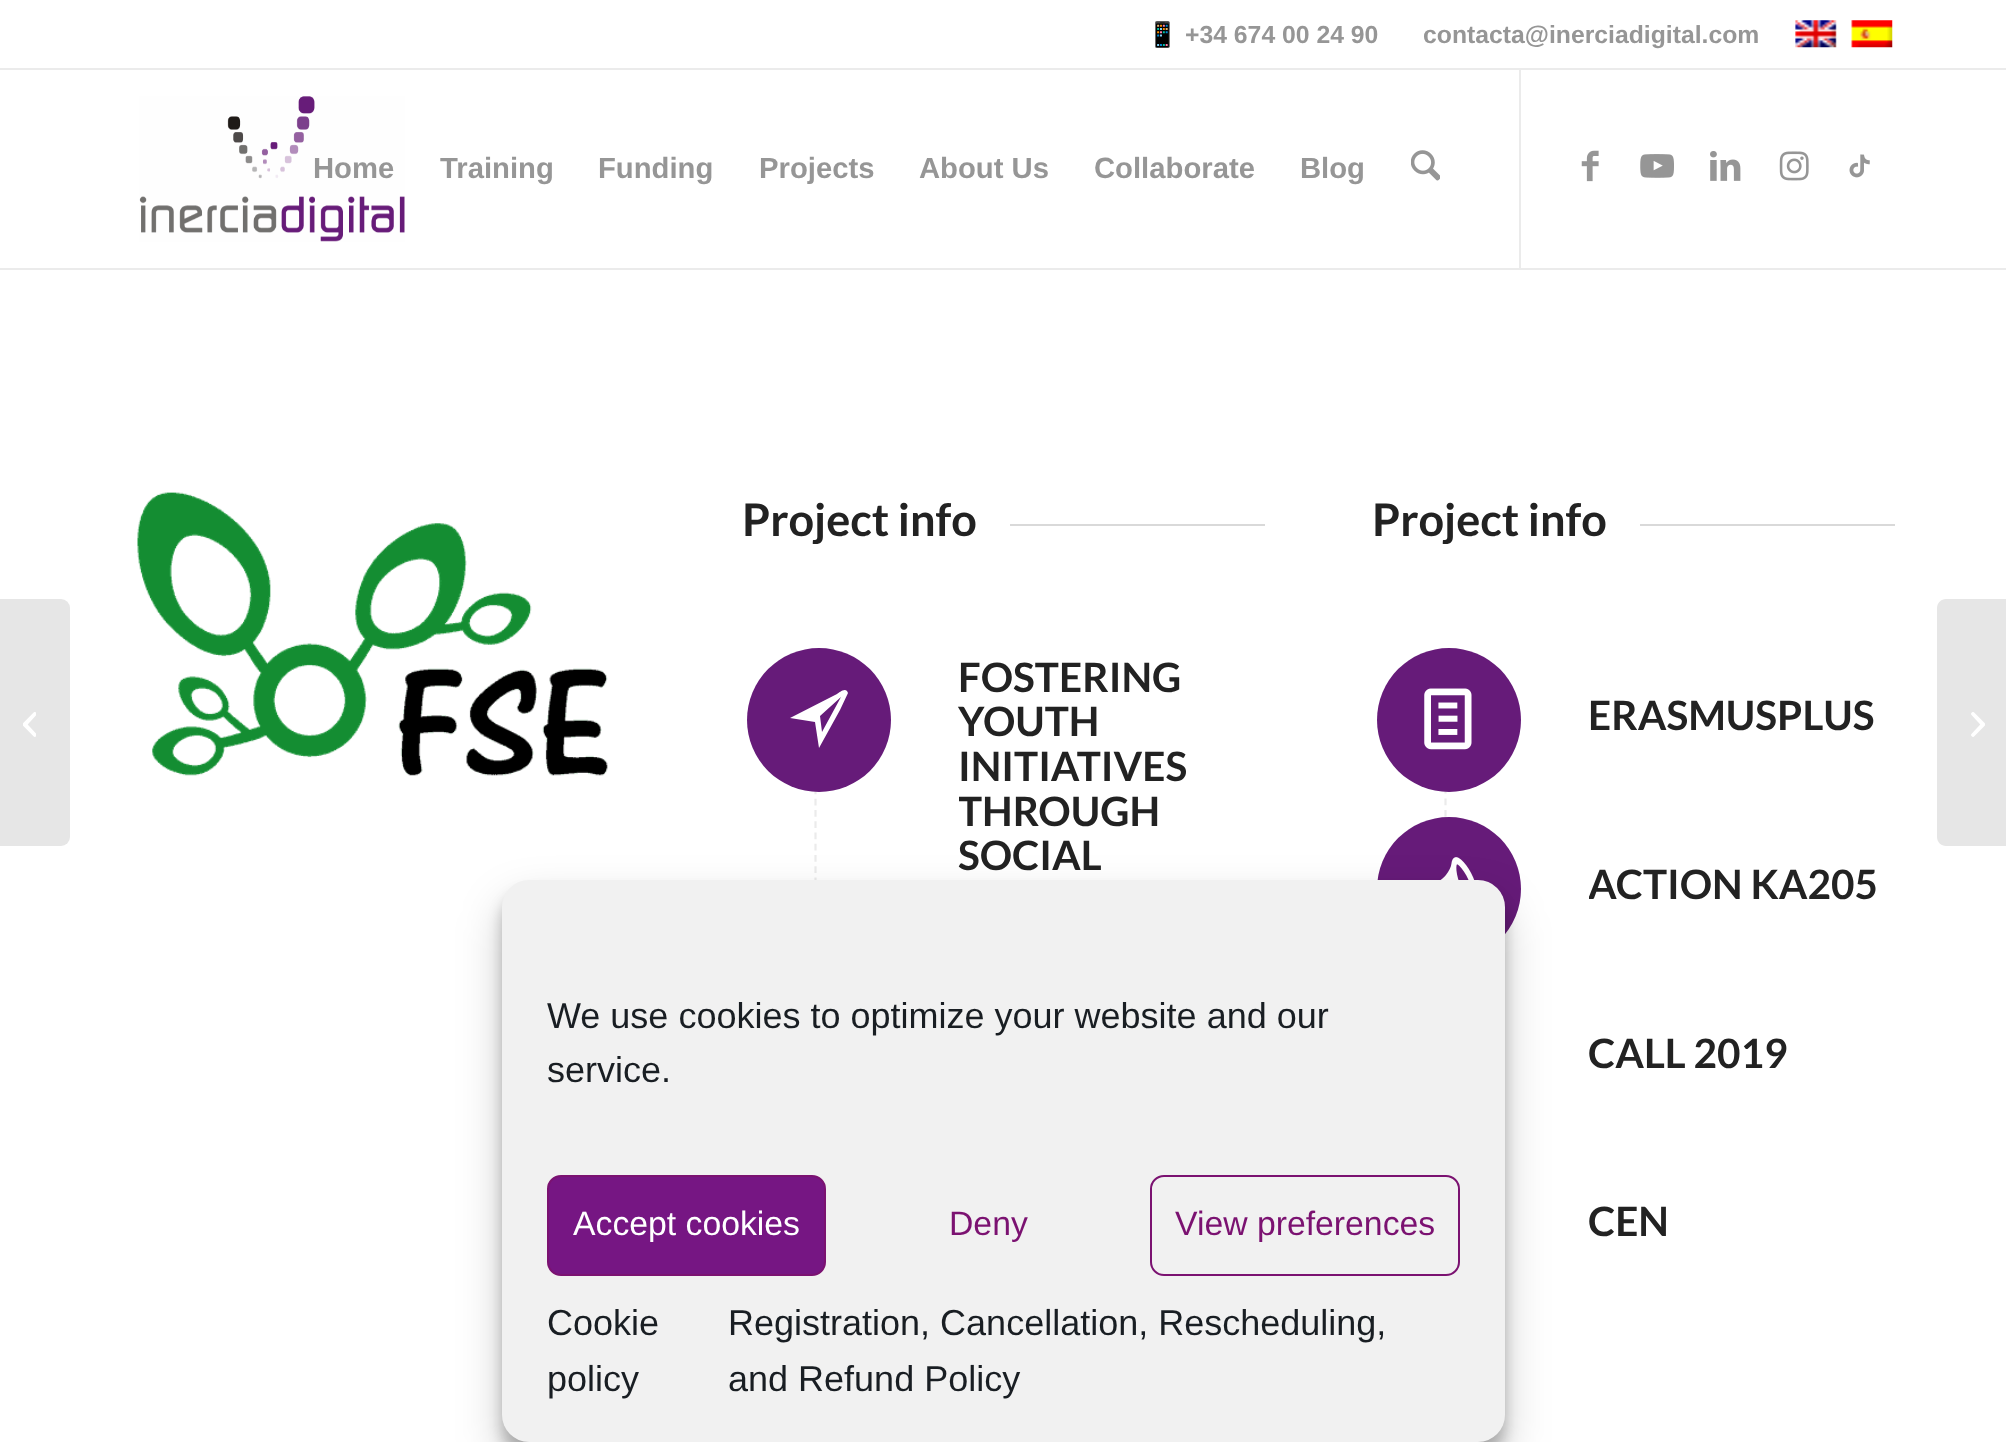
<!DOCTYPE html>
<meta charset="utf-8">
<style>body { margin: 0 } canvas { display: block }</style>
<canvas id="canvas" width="2006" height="1442"></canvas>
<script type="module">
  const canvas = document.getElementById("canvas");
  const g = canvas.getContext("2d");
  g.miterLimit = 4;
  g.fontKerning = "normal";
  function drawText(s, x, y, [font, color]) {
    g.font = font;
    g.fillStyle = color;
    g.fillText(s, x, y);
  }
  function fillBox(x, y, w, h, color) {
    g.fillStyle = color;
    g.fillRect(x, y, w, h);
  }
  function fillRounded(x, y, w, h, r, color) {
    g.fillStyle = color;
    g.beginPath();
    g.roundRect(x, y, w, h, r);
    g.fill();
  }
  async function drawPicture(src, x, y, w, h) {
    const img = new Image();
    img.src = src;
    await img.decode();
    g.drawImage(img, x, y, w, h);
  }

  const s1 = ["bold 24.75px Noto Color Emoji", "#969696"];
  const s2 = ["bold 24.75px Liberation Sans", "#969696"];
  const s3 = ["bold 29.25px Liberation Sans", "#969696"];
  const s4 = ["bold 45px Lato", "#222222"];
  const s5 = ["bold 40.5px Lato", "#222222"];
  const s6 = ["36px Liberation Sans", "#191E23"];
  const s7 = ["33.75px Liberation Sans", "#FFFFFF"];
  const s8 = ["33.75px Liberation Sans", "#7B1271"];

  fillBox(0, 0, 2006, 1442, "#FFFFFF");
  fillBox(0, 68, 2006, 2, "#EBEBEB");
  drawText("📱", 1147, 43, s1);
  drawText("+34 674 00 24 90", 1185, 43, s2);
  drawText("contacta@inerciadigital.com", 1423, 43, s2);
  await drawPicture("pic1.png", 1795, 20, 42, 28);
  await drawPicture("pic2.png", 1851, 20, 42, 28);
  fillBox(0, 268, 2006, 2, "#EBEBEB");
  await drawPicture("pic3.png", 139, 96, 266, 146);
  fillBox(1519, 70, 2, 198, "#EBEBEB");
  drawText("Home", 313, 178, s3);
  drawText("Training", 440, 178, s3);
  drawText("Funding", 598, 178, s3);
  drawText("Projects", 759, 178, s3);
  drawText("About Us", 919, 178, s3);
  drawText("Collaborate", 1094, 178, s3);
  drawText("Blog", 1300, 178, s3);
  await drawPicture("pic4.png", 1411, 150, 29, 31);
  await drawPicture("pic5.png", 1581, 150, 18, 32);
  await drawPicture("pic6.png", 1640, 154, 34, 24);
  await drawPicture("pic7.png", 1710, 151, 31, 30);
  await drawPicture("pic8.png", 1779, 151, 30, 30);
  await drawPicture("pic9.png", 1849, 154, 21, 24);
  g.fillStyle = "#E6E6E6";
  g.beginPath();
  g.roundRect(0, 599, 70, 247, [0, 9, 9, 0]);
  g.fill();
  await drawPicture("pic10.png", 23, 712, 13, 25);
  await drawPicture("pic11.png", 137, 492, 471, 284);
  drawText("Project info", 742, 536, s4);
  fillBox(1010, 524, 255, 2, "#D9D9D9");
  g.beginPath();
  g.moveTo(815.5, 652.5);
  g.lineTo(815.5, 1323);
  g.strokeStyle = "#EBEBEB";
  g.lineWidth = 2.2;
  g.setLineDash([6.75, 4.5]);
  g.stroke();
  g.fillStyle = "#661B79";
  g.beginPath();
  g.arc(819, 720, 72, 0, Math.PI * 2);
  g.fill();
  g.fillStyle = "#FFFFFF";
  g.beginPath();
  g.moveTo(847, 691);
  g.lineTo(848, 693);
  g.lineTo(840, 710);
  g.lineTo(819, 748);
  g.lineTo(815, 722);
  g.lineTo(790, 718);
  g.lineTo(837, 694);
  g.bezierCurveTo(839, 693, 844, 688, 847, 691);
  g.closePath();
  g.moveTo(841, 697);
  g.lineTo(820, 716);
  g.lineTo(822, 732);
  g.closePath();
  g.fill();
  drawText("FOSTERING", 958, 692, s5);
  drawText("YOUTH", 958, 736, s5);
  drawText("INITIATIVES", 958, 781, s5);
  g.save();
  g.beginPath();
  g.rect(959, 648, 306, 601);
  g.clip();
  drawText("THROUGH", 958, 826, s5);
  g.restore();
  drawText("SOCIAL", 958, 870, s5);
  drawText("Project info", 1372, 536, s4);
  fillBox(1640, 524, 255, 2, "#D9D9D9");
  g.beginPath();
  g.moveTo(1445.5, 648);
  g.lineTo(1445.5, 817);
  g.setLineDash([6.75, 4.82]);
  g.stroke();
  g.fillStyle = "#661B79";
  g.beginPath();
  g.arc(1449, 720, 72, 0, Math.PI * 2);
  g.fill();
  await drawPicture("pic12.png", 1424, 688, 48, 62);
  drawText("ERASMUSPLUS", 1588, 730, s5);
  g.beginPath();
  g.moveTo(1445.5, 817);
  g.lineTo(1445.5, 985.5);
  g.stroke();
  g.fillStyle = "#661B79";
  g.beginPath();
  g.arc(1449, 889, 72, 0, Math.PI * 2);
  g.fill();
  await drawPicture("pic13.png", 1440, 857, 35, 23);
  g.save();
  g.beginPath();
  g.rect(1589, 817, 306, 90);
  g.clip();
  drawText("ACTION KA205", 1588, 899, s5);
  g.restore();
  drawText("CALL 2019", 1588, 1068, s5);
  drawText("CEN", 1588, 1236, s5);
  g.fillStyle = "#E6E6E6";
  g.beginPath();
  g.moveTo(1946, 599);
  g.lineTo(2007, 599);
  g.lineTo(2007, 846);
  g.lineTo(1946, 846);
  g.bezierCurveTo(1941, 846, 1937, 842, 1937, 837);
  g.lineTo(1937, 608);
  g.bezierCurveTo(1937, 603, 1941, 599, 1946, 599);
  g.closePath();
  g.fill();
  await drawPicture("pic14.png", 1971, 712, 14, 25);
  g.fillStyle = "rgba(0, 0, 0, 0.23)";
  g.filter = "blur(7px)";
  g.beginPath();
  g.roundRect(502, 893, 1003, 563, 27);
  g.fill();
  g.filter = "none";
  g.fillStyle = "rgba(0, 0, 0, 0.19)";
  g.filter = "blur(22.5px)";
  g.beginPath();
  g.roundRect(502, 902, 1003, 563, 27);
  g.fill();
  g.filter = "none";
  fillRounded(502, 880, 1003, 562, 27, "#F1F1F1");
  drawText("We use cookies to optimize your website and our", 547, 1028, s6);
  drawText("service.", 547, 1082, s6);
  g.fillStyle = "#761683";
  g.beginPath();
  g.roundRect(548, 1176, 277, 99, 13);
  g.fill();
  g.strokeStyle = "#7B1271";
  g.lineWidth = 2;
  g.setLineDash([]);
  g.stroke();
  drawText("Accept cookies", 573, 1235, s7);
  drawText("Deny", 949, 1235, s8);
  g.beginPath();
  g.roundRect(1151, 1176, 308, 99, 13);
  g.stroke();
  drawText("View preferences", 1175, 1235, s8);
  drawText("Cookie", 547, 1335, s6);
  drawText("policy", 547, 1391, s6);
  drawText("Registration, Cancellation, Rescheduling,", 728, 1335, s6);
  drawText("and Refund Policy", 728, 1391, s6);
</script>
